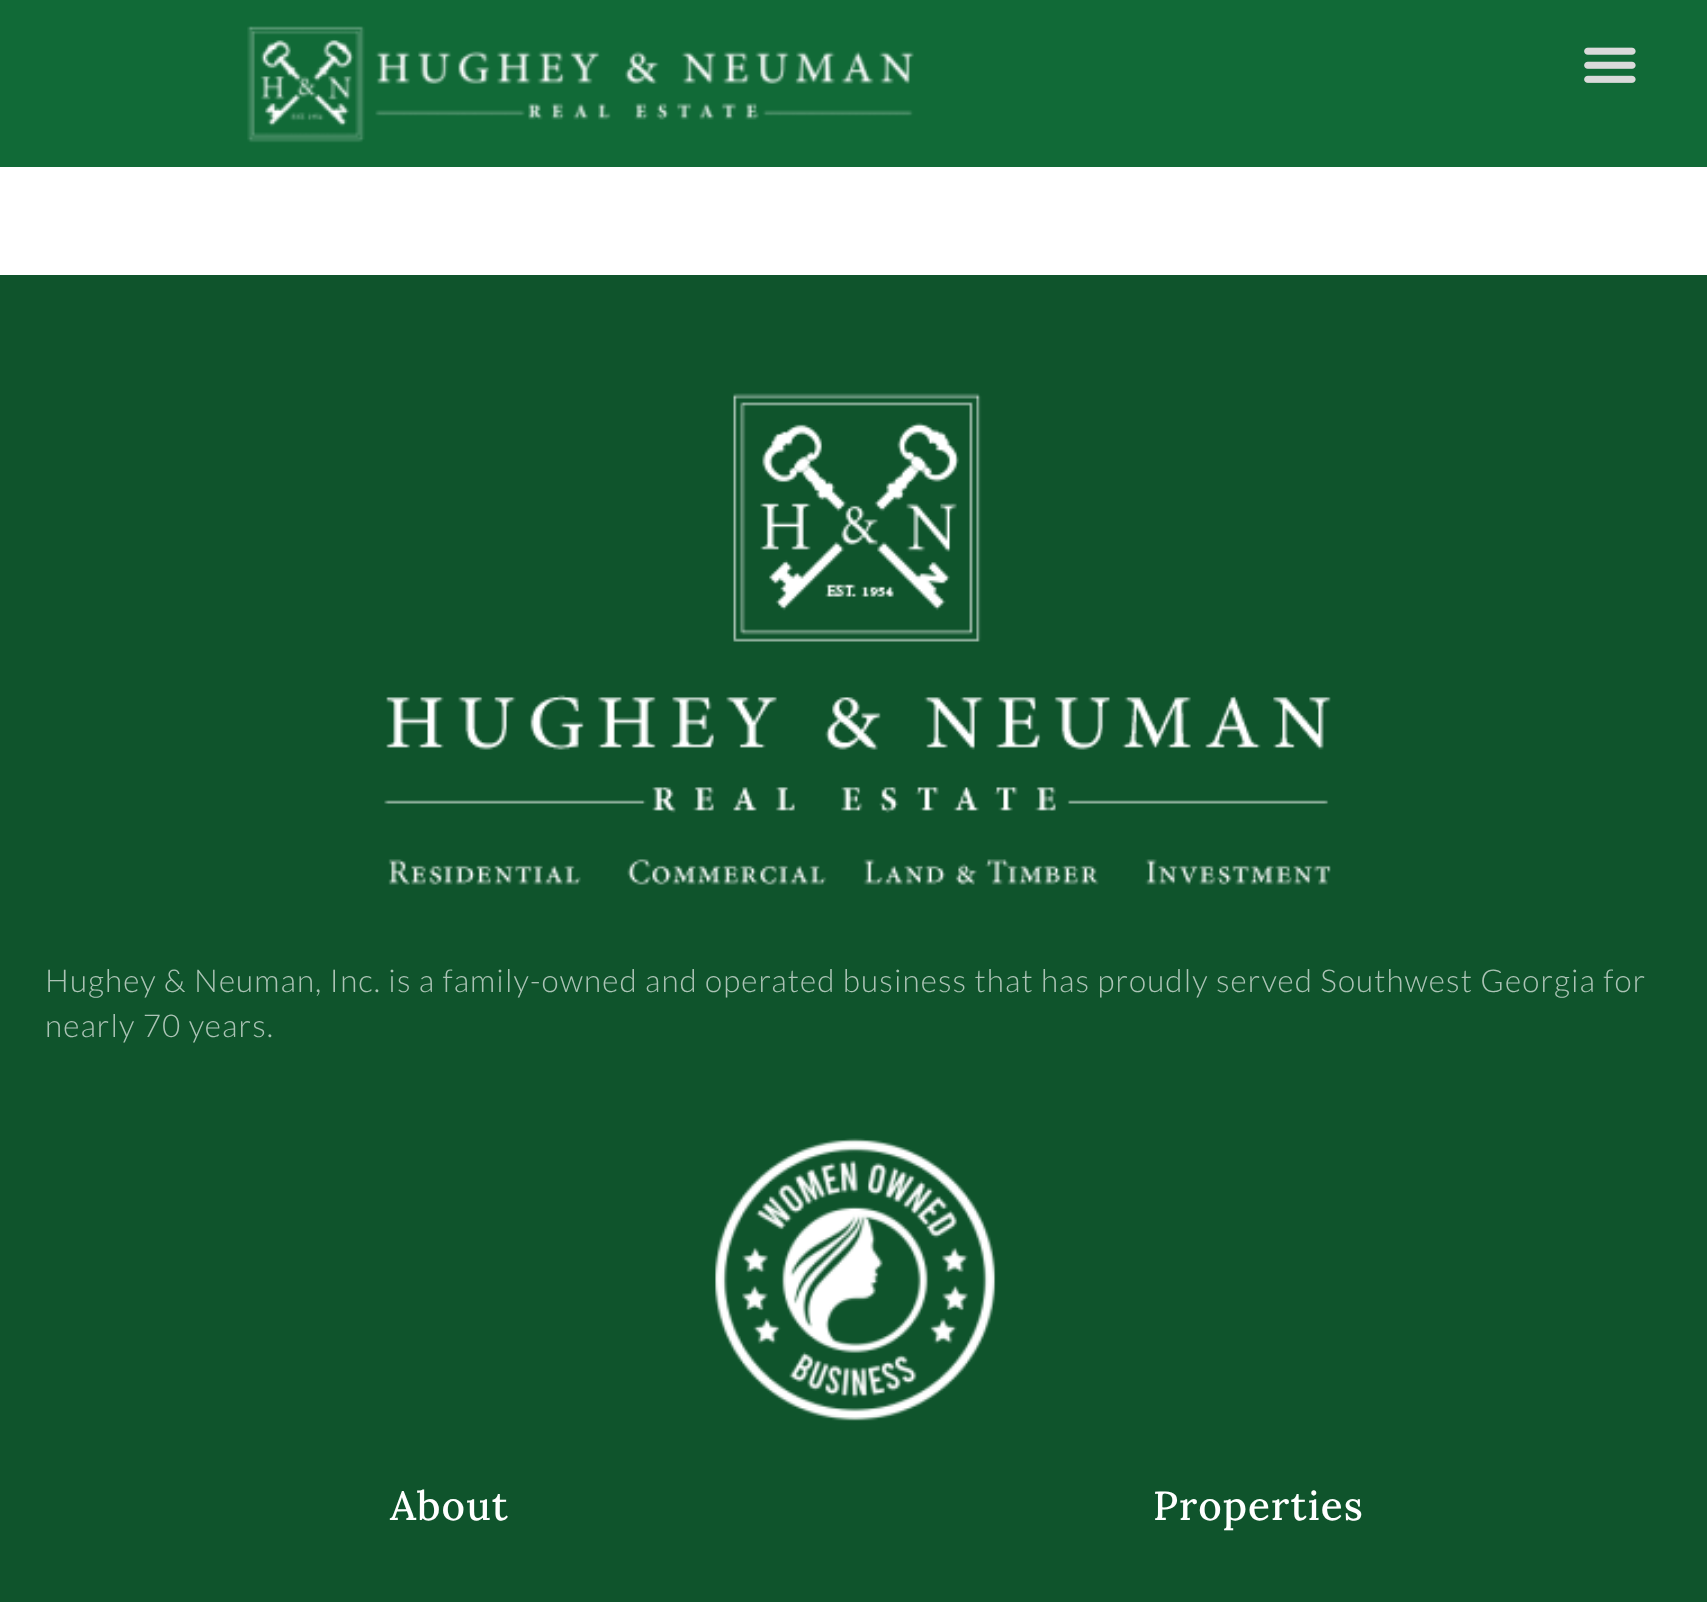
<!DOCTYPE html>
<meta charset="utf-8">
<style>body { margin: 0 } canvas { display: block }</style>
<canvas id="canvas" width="1707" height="1602"></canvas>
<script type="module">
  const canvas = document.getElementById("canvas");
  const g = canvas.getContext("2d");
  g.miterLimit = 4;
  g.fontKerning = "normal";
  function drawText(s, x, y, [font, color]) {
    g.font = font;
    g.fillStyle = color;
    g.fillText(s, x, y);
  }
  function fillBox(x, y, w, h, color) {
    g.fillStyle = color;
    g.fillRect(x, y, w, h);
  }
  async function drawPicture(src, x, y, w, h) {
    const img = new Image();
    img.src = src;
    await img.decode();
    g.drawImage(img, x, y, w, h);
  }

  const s1 = ["300 31.5px Lato", "#ABC3B5"];
  const s2 = ["500 40.5px Lora", "#FFFFFF"];

  fillBox(0, 0, 1707, 1602, "#FFFFFF");
  fillBox(0, 0, 1707, 167, "#116A37");
  await drawPicture("pic1.png", 247, 26, 667, 117);
  await drawPicture("pic2.png", 1584, 47, 52, 36);
  fillBox(0, 275, 1707, 1327, "#0F542C");
  await drawPicture("pic3.png", 384, 393, 947, 492);
  g.letterSpacing = "1.12px";
  drawText("Hughey & Neuman, Inc. is a family-owned and operated business that has proudly served Southwest Georgia for", 45, 992, s1);
  drawText("nearly 70 years.", 45, 1037, s1);
  await drawPicture("pic4.png", 715, 1138, 281, 283);
  drawText("About", 390, 1520, s2);
  drawText("Properties", 1153, 1520, s2);
</script>
